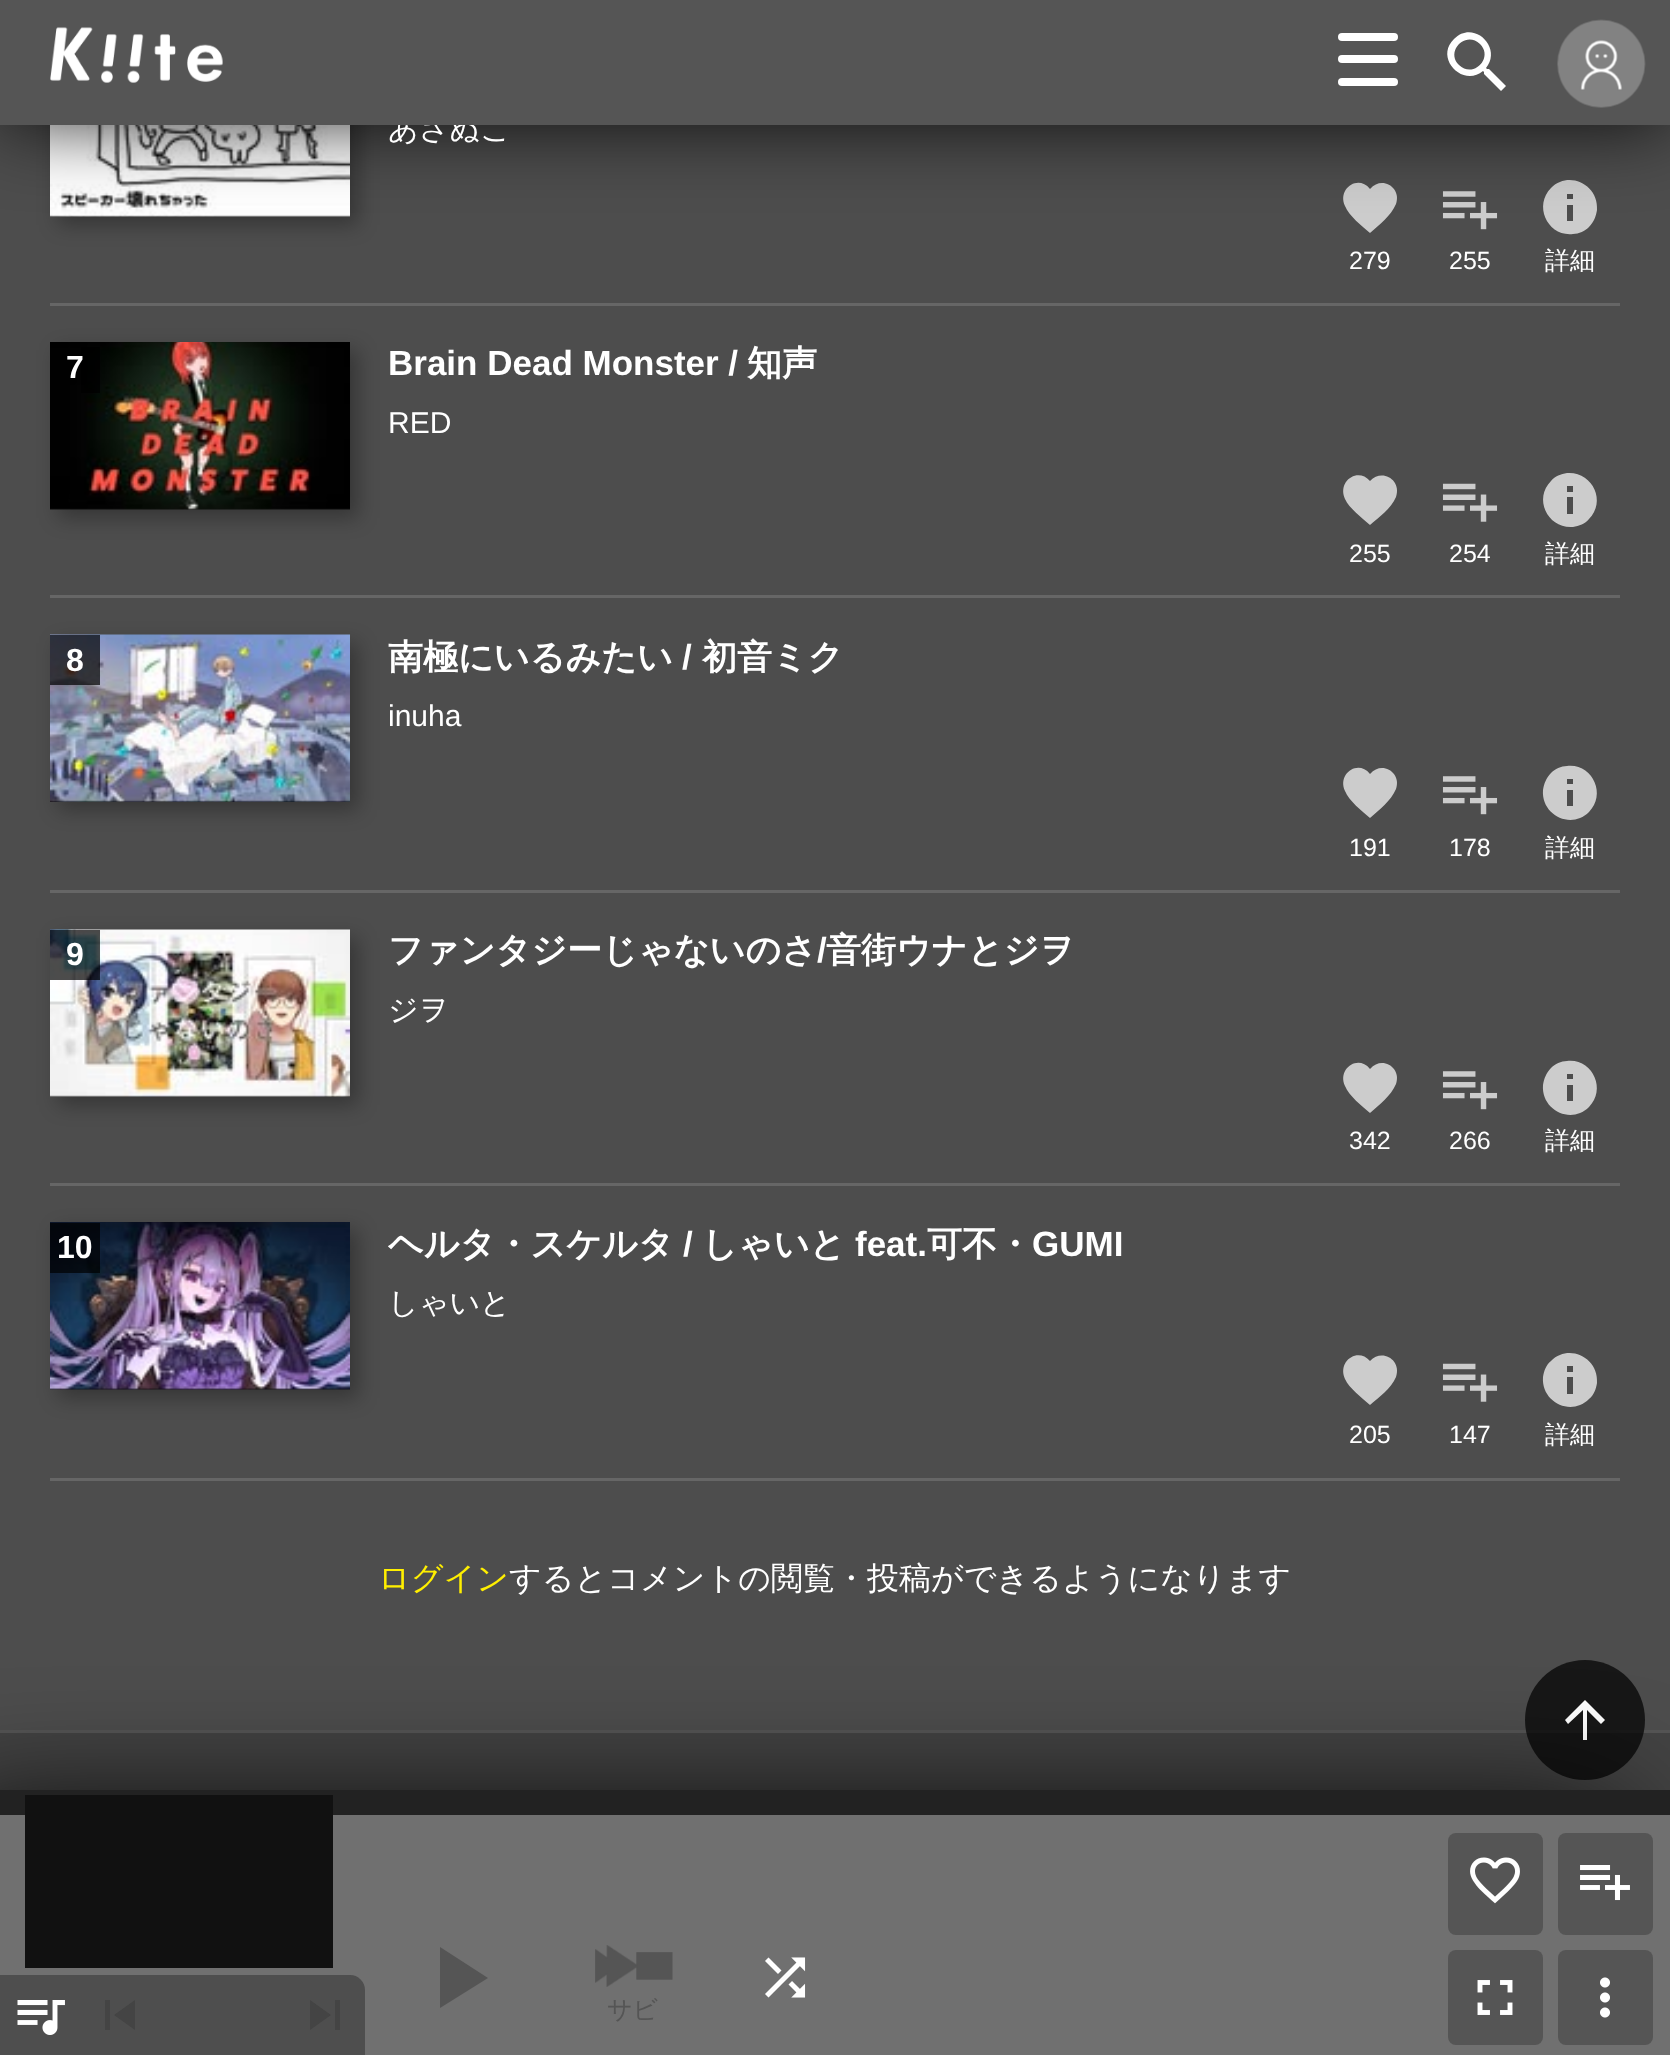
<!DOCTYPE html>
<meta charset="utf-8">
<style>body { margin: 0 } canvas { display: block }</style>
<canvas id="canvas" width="1670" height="2055"></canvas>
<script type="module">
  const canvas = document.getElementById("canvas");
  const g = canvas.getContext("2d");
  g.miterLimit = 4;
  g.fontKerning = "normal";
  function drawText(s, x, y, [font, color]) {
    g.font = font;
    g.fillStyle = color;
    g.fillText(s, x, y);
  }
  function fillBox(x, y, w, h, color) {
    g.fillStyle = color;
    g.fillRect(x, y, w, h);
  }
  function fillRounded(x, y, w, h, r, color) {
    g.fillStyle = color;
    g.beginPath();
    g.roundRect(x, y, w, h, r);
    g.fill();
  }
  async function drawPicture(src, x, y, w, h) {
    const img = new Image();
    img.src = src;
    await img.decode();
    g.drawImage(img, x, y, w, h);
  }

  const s1 = ["500 30px WenQuanYi Zen Hei", "#FFFFFF"];
  const s2 = ["25px Liberation Sans", "#FFFFFF"];
  const s3 = ["500 25px WenQuanYi Zen Hei", "#FFFFFF"];
  const s4 = ["bold 35px Liberation Sans", "#FFFFFF"];
  const s5 = ["bold 35px WenQuanYi Zen Hei", "#FFFFFF"];
  const s6 = ["30px Liberation Sans", "#FFFFFF"];
  const s7 = ["bold 32px Liberation Sans", "#FFFFFF"];
  const s8 = ["500 32px WenQuanYi Zen Hei", "#FFEF00"];
  const s9 = ["500 32px WenQuanYi Zen Hei", "#FFFFFF"];
  const s10 = ["500 25px WenQuanYi Zen Hei", "#555555"];

  fillBox(0, 0, 1670, 2055, "#4D4D4D");
  g.fillStyle = "rgba(0, 0, 0, 0.3)";
  g.filter = "blur(10px)";
  g.beginPath();
  g.rect(58, 58, 300, 167);
  g.fill();
  g.filter = "none";
  await drawPicture("pic3.png", 50, 125, 300, 92);
  g.fillStyle = "#CCCCCC";
  g.beginPath();
  g.moveTo(1370, 233);
  g.bezierCurveTo(1362, 226, 1349, 216, 1345, 206);
  g.bezierCurveTo(1337, 189, 1358, 174, 1370, 189);
  g.bezierCurveTo(1382, 175, 1402, 188, 1396, 204);
  g.bezierCurveTo(1391, 216, 1379, 225, 1370, 233);
  g.closePath();
  g.fill();
  await drawPicture("pic4.png", 1442, 191, 56, 39);
  g.beginPath();
  g.moveTo(1573, 199);
  g.lineTo(1573, 194);
  g.lineTo(1567, 194);
  g.lineTo(1567, 199);
  g.closePath();
  g.moveTo(1573, 221);
  g.lineTo(1573, 205);
  g.lineTo(1567, 205);
  g.lineTo(1567, 221);
  g.closePath();
  g.moveTo(1551, 188);
  g.bezierCurveTo(1569, 170, 1599, 185, 1597, 210);
  g.bezierCurveTo(1596, 216, 1594, 222, 1589, 227);
  g.bezierCurveTo(1585, 231, 1579, 234, 1573, 234);
  g.bezierCurveTo(1548, 237, 1533, 206, 1551, 188);
  g.closePath();
  g.fill();
  g.fillStyle = "rgba(0, 0, 0, 0.8)";
  g.filter = "blur(37.5px)";
  g.beginPath();
  g.rect(0, 0, 1670, 125);
  g.fill();
  g.filter = "none";
  drawText("あさぬこ", 388, 139, s1);
  fillBox(0, 0, 1670, 125, "#555555");
  await drawPicture("pic1.png", 50, 27, 173, 56);
  fillRounded(1338, 33, 60, 8, 4, "#FFFFFF");
  fillRounded(1338, 55, 60, 8, 4, "#FFFFFF");
  fillRounded(1338, 78, 60, 8, 4, "#FFFFFF");
  g.beginPath();
  g.moveTo(1459, 65);
  g.bezierCurveTo(1473, 79, 1494, 58, 1480, 44);
  g.bezierCurveTo(1466, 30, 1445, 51, 1459, 65);
  g.closePath();
  g.moveTo(1489, 69);
  g.lineTo(1506, 86);
  g.lineTo(1501, 91);
  g.lineTo(1484, 74);
  g.lineTo(1484, 72);
  g.lineTo(1483, 71);
  g.bezierCurveTo(1463, 88, 1434, 58, 1454, 39);
  g.bezierCurveTo(1473, 19, 1503, 47, 1486, 68);
  g.lineTo(1487, 69);
  g.closePath();
  g.fill();
  await drawPicture("pic2.png", 1557, 19, 89, 89);
  fillBox(50, 303, 1570, 3, "#666666");
  drawText("279", 1349, 269, s2);
  drawText("255", 1449, 269, s2);
  drawText("詳細", 1545, 269, s3);
  fillBox(50, 595, 1570, 3, "#666666");
  g.fillStyle = "rgba(0, 0, 0, 0.3)";
  g.filter = "blur(10px)";
  g.beginPath();
  g.rect(58, 350, 300, 168);
  g.fill();
  g.filter = "none";
  await drawPicture("pic5.png", 50, 342, 300, 168);
  drawText("Brain Dead Monster /", 388, 375, s4);
  drawText("知声", 747, 375, s5);
  drawText("RED", 388, 433, s6);
  fillBox(81, 347, 19, 46, "rgba(0, 0, 0, 0.7)");
  drawText("7", 66, 378, s7);
  g.fillStyle = "#CCCCCC";
  g.beginPath();
  g.moveTo(1370, 525);
  g.bezierCurveTo(1362, 518, 1349, 508, 1345, 499);
  g.bezierCurveTo(1337, 481, 1358, 467, 1370, 481);
  g.bezierCurveTo(1382, 468, 1402, 480, 1396, 497);
  g.bezierCurveTo(1391, 509, 1379, 517, 1370, 525);
  g.closePath();
  g.fill();
  drawText("255", 1349, 562, s2);
  await drawPicture("pic6.png", 1442, 483, 56, 39);
  drawText("254", 1449, 562, s2);
  g.fillStyle = "#CCCCCC";
  g.beginPath();
  g.moveTo(1573, 492);
  g.lineTo(1573, 486);
  g.lineTo(1567, 486);
  g.lineTo(1567, 492);
  g.closePath();
  g.moveTo(1573, 514);
  g.lineTo(1573, 497);
  g.lineTo(1567, 497);
  g.lineTo(1567, 514);
  g.closePath();
  g.moveTo(1551, 481);
  g.bezierCurveTo(1555, 476, 1561, 474, 1567, 473);
  g.bezierCurveTo(1592, 471, 1607, 501, 1589, 519);
  g.bezierCurveTo(1585, 524, 1579, 526, 1573, 527);
  g.bezierCurveTo(1548, 529, 1533, 499, 1551, 481);
  g.closePath();
  g.fill();
  drawText("詳細", 1545, 562, s3);
  fillBox(50, 890, 1570, 3, "#666666");
  g.fillStyle = "rgba(0, 0, 0, 0.3)";
  g.filter = "blur(10px)";
  g.beginPath();
  g.rect(58, 643, 300, 167);
  g.fill();
  g.filter = "none";
  await drawPicture("pic7.png", 50, 634, 300, 168);
  drawText("南極にいるみたい", 388, 669, s5);
  drawText("/", 682, 669, s4);
  drawText("初音ミク", 702, 669, s5);
  drawText("inuha", 388, 726, s6);
  fillBox(50, 635, 50, 50, "rgba(0, 0, 0, 0.7)");
  drawText("8", 66, 671, s7);
  g.fillStyle = "#CCCCCC";
  g.beginPath();
  g.moveTo(1370, 818);
  g.bezierCurveTo(1362, 811, 1349, 801, 1345, 791);
  g.bezierCurveTo(1337, 774, 1358, 759, 1370, 774);
  g.bezierCurveTo(1382, 760, 1402, 773, 1396, 789);
  g.bezierCurveTo(1391, 801, 1379, 810, 1370, 818);
  g.closePath();
  g.fill();
  drawText("191", 1349, 856, s2);
  await drawPicture("pic4.png", 1442, 776, 56, 39);
  drawText("178", 1449, 856, s2);
  g.fillStyle = "#CCCCCC";
  g.beginPath();
  g.moveTo(1573, 784);
  g.lineTo(1573, 779);
  g.lineTo(1567, 779);
  g.lineTo(1567, 784);
  g.closePath();
  g.moveTo(1573, 806);
  g.lineTo(1573, 790);
  g.lineTo(1567, 790);
  g.lineTo(1567, 806);
  g.closePath();
  g.moveTo(1551, 773);
  g.bezierCurveTo(1555, 769, 1561, 766, 1567, 766);
  g.bezierCurveTo(1592, 763, 1607, 794, 1589, 812);
  g.bezierCurveTo(1571, 830, 1541, 815, 1543, 790);
  g.bezierCurveTo(1544, 784, 1546, 778, 1551, 773);
  g.closePath();
  g.fill();
  drawText("詳細", 1545, 856, s3);
  fillBox(50, 1183, 1570, 3, "#666666");
  g.fillStyle = "rgba(0, 0, 0, 0.3)";
  g.filter = "blur(10px)";
  g.beginPath();
  g.rect(58, 938, 300, 167);
  g.fill();
  g.filter = "none";
  await drawPicture("pic8.png", 50, 929, 300, 168);
  drawText("ファンタジーじゃないのさ", 388, 962, s5);
  drawText("/", 817, 962, s4);
  drawText("音街ウナとジヲ", 826, 962, s5);
  drawText("ジヲ", 388, 1020, s1);
  fillBox(50, 930, 50, 50, "rgba(0, 0, 0, 0.7)");
  drawText("9", 66, 965, s7);
  g.fillStyle = "#CCCCCC";
  g.beginPath();
  g.moveTo(1370, 1113);
  g.bezierCurveTo(1362, 1106, 1349, 1096, 1345, 1086);
  g.bezierCurveTo(1337, 1069, 1358, 1054, 1370, 1069);
  g.bezierCurveTo(1382, 1055, 1402, 1068, 1396, 1084);
  g.bezierCurveTo(1391, 1096, 1379, 1105, 1370, 1113);
  g.closePath();
  g.fill();
  drawText("342", 1349, 1149, s2);
  await drawPicture("pic4.png", 1442, 1071, 56, 39);
  drawText("266", 1449, 1149, s2);
  g.fillStyle = "#CCCCCC";
  g.beginPath();
  g.moveTo(1573, 1079);
  g.lineTo(1573, 1074);
  g.lineTo(1567, 1074);
  g.lineTo(1567, 1079);
  g.closePath();
  g.moveTo(1573, 1101);
  g.lineTo(1573, 1085);
  g.lineTo(1567, 1085);
  g.lineTo(1567, 1101);
  g.closePath();
  g.moveTo(1551, 1068);
  g.bezierCurveTo(1555, 1064, 1561, 1061, 1567, 1061);
  g.bezierCurveTo(1592, 1058, 1607, 1089, 1589, 1107);
  g.bezierCurveTo(1571, 1125, 1541, 1110, 1543, 1085);
  g.bezierCurveTo(1544, 1079, 1546, 1073, 1551, 1068);
  g.closePath();
  g.fill();
  drawText("詳細", 1545, 1149, s3);
  fillBox(50, 1478, 1570, 3, "#666666");
  g.fillStyle = "rgba(0, 0, 0, 0.3)";
  g.filter = "blur(10px)";
  g.beginPath();
  g.rect(58, 1230, 300, 168);
  g.fill();
  g.filter = "none";
  await drawPicture("pic9.png", 50, 1222, 300, 168);
  drawText("ヘルタ・スケルタ", 388, 1256, s5);
  drawText("/", 683, 1256, s4);
  drawText("しゃいと", 702, 1256, s5);
  drawText("feat.", 855, 1256, s4);
  drawText("可不・", 927, 1256, s5);
  drawText("GUMI", 1032, 1256, s4);
  drawText("しゃいと", 388, 1313, s1);
  fillBox(50, 1223, 50, 50, "rgba(0, 0, 0, 0.7)");
  drawText("10", 57, 1258, s7);
  g.fillStyle = "#CCCCCC";
  g.beginPath();
  g.moveTo(1370, 1405);
  g.bezierCurveTo(1362, 1398, 1349, 1388, 1345, 1379);
  g.bezierCurveTo(1337, 1361, 1358, 1347, 1370, 1361);
  g.bezierCurveTo(1382, 1348, 1402, 1360, 1396, 1377);
  g.bezierCurveTo(1391, 1389, 1379, 1397, 1370, 1405);
  g.closePath();
  g.fill();
  drawText("205", 1349, 1443, s2);
  await drawPicture("pic6.png", 1442, 1363, 56, 39);
  drawText("147", 1449, 1443, s2);
  g.fillStyle = "#CCCCCC";
  g.beginPath();
  g.moveTo(1573, 1372);
  g.lineTo(1573, 1366);
  g.lineTo(1567, 1366);
  g.lineTo(1567, 1372);
  g.closePath();
  g.moveTo(1573, 1394);
  g.lineTo(1573, 1377);
  g.lineTo(1567, 1377);
  g.lineTo(1567, 1394);
  g.closePath();
  g.moveTo(1551, 1361);
  g.bezierCurveTo(1569, 1343, 1599, 1358, 1597, 1383);
  g.bezierCurveTo(1596, 1389, 1594, 1395, 1589, 1399);
  g.bezierCurveTo(1571, 1417, 1541, 1402, 1543, 1377);
  g.bezierCurveTo(1544, 1371, 1546, 1365, 1551, 1361);
  g.closePath();
  g.fill();
  drawText("詳細", 1545, 1443, s3);
  drawText("ログイン", 378, 1589, s8);
  drawText("するとコメントの閲覧・投稿ができるようになります", 509, 1589, s9);
  fillBox(0, 1733, 1670, 57, "#434343");
  fillBox(0, 1730, 1670, 3, "#555555");
  g.fillStyle = "rgba(0, 0, 0, 0.7)";
  g.beginPath();
  g.arc(1585, 1720, 60, 0, Math.PI * 2);
  g.fill();
  g.fillStyle = "#FFFFFF";
  g.beginPath();
  g.moveTo(1565, 1720);
  g.lineTo(1585, 1700);
  g.lineTo(1605, 1720);
  g.lineTo(1601, 1724);
  g.lineTo(1587, 1710);
  g.lineTo(1587, 1740);
  g.lineTo(1583, 1740);
  g.lineTo(1583, 1710);
  g.lineTo(1568, 1724);
  g.closePath();
  g.fill();
  g.fillStyle = "#000000";
  g.filter = "blur(62.5px)";
  g.beginPath();
  g.rect(-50, 1815, 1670, 240);
  g.fill();
  g.filter = "none";
  fillBox(0, 1790, 1670, 25, "#222222");
  fillBox(0, 1815, 1670, 240, "#707070");
  fillBox(25, 1795, 308, 173, "#111111");
  g.fillStyle = "#4E4E4E";
  g.beginPath();
  g.roundRect(0, 1975, 365, 80, [0, 15, 0, 0]);
  g.fill();
  await drawPicture("pic10.png", 17, 2000, 48, 35);
  g.fillStyle = "#444444";
  g.beginPath();
  g.moveTo(114, 2015);
  g.lineTo(135, 2000);
  g.lineTo(135, 2030);
  g.closePath();
  g.moveTo(105, 2000);
  g.lineTo(110, 2000);
  g.lineTo(110, 2030);
  g.lineTo(105, 2030);
  g.closePath();
  g.fill();
  g.beginPath();
  g.moveTo(335, 2000);
  g.lineTo(340, 2000);
  g.lineTo(340, 2030);
  g.lineTo(335, 2030);
  g.closePath();
  g.moveTo(310, 2030);
  g.lineTo(310, 2000);
  g.lineTo(331, 2015);
  g.closePath();
  g.fill();
  g.fillStyle = "#555555";
  g.beginPath();
  g.moveTo(440, 1947);
  g.lineTo(488, 1978);
  g.lineTo(440, 2008);
  g.closePath();
  g.fill();
  await drawPicture("pic11.png", 765, 1957, 41, 41);
  await drawPicture("pic12.png", 595, 1945, 78, 42);
  drawText("サビ", 607, 2018, s10);
  fillRounded(1448, 1833, 95, 102, 8, "#555555");
  await drawPicture("pic13.png", 1470, 1857, 50, 47);
  fillRounded(1558, 1833, 95, 102, 8, "#555555");
  await drawPicture("pic14.png", 1580, 1865, 50, 36);
  fillRounded(1448, 1950, 95, 95, 8, "#555555");
  await drawPicture("pic15.png", 1477, 1980, 36, 35);
  fillRounded(1558, 1950, 95, 95, 8, "#555555");
  await drawPicture("pic16.png", 1600, 1977, 10, 41);
</script>
